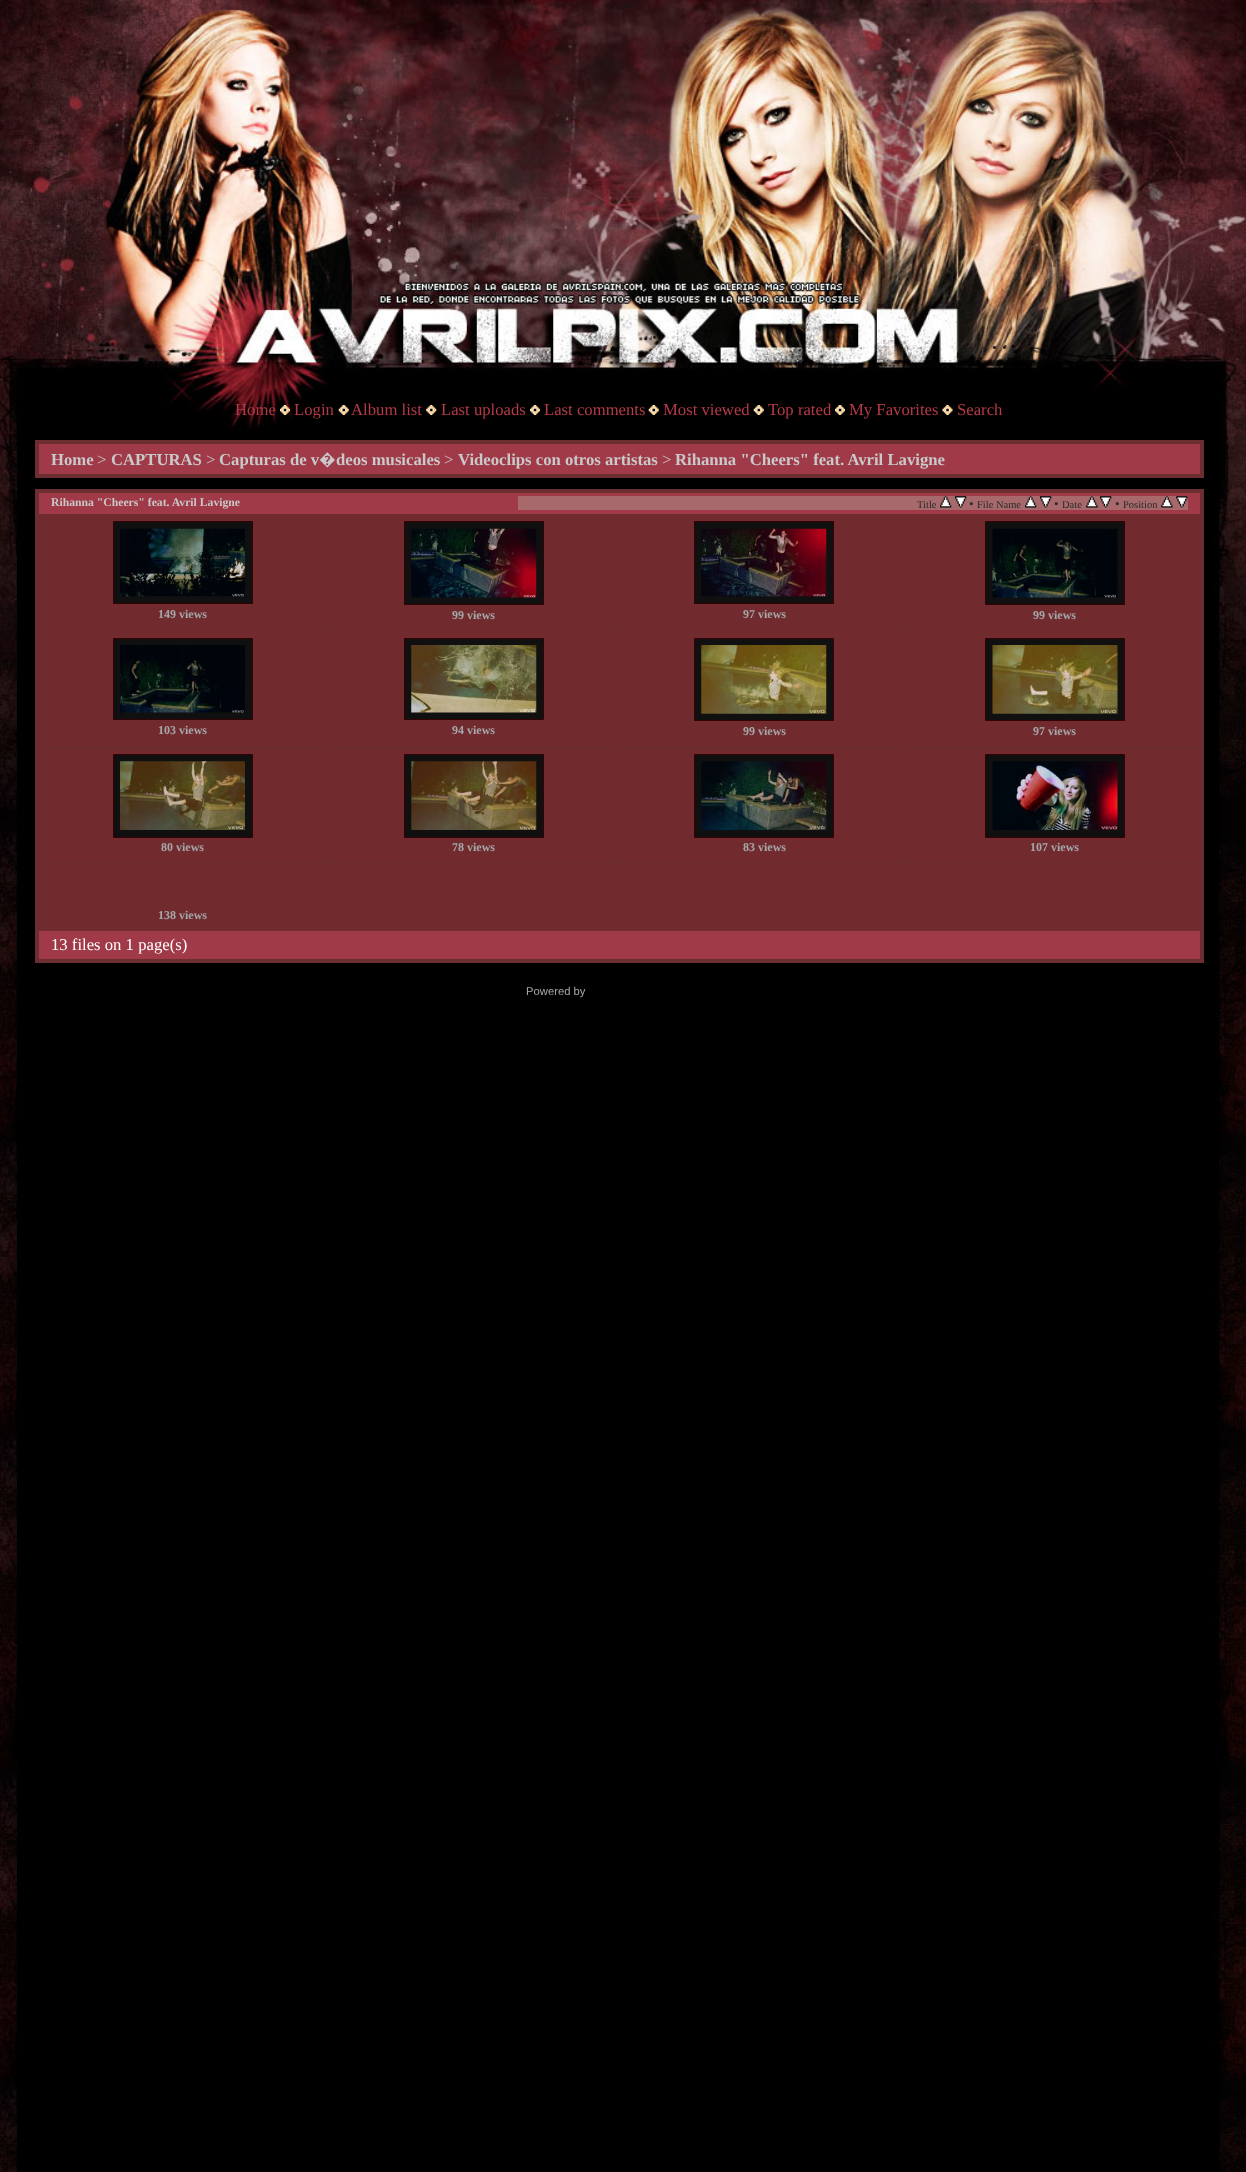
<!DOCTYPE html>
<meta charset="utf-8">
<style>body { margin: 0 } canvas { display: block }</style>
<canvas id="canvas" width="1246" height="2172"></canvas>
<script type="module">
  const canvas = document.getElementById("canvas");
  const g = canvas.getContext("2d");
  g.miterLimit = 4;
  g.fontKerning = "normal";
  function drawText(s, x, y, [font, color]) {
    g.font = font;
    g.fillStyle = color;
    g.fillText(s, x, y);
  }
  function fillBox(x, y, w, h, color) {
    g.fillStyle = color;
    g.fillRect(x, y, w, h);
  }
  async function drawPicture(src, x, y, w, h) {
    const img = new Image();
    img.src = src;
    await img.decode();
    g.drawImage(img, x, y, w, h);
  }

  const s1 = ["16.7px Liberation Serif", "#B53A48"];
  const s2 = ["bold 16.7px Liberation Serif", "#C9C9C9"];
  const s3 = ["16.7px Liberation Serif", "#C9C9C9"];
  const s4 = ["bold 16.7px Noto Sans", "#C9C9C9"];
  const s5 = ["bold 11.7px Liberation Serif", "#C9C9C9"];
  const s6 = ["10.5px Liberation Serif", "#282828"];
  const s7 = ["13px Liberation Serif", "#282828"];
  const s8 = ["bold 12px Liberation Serif", "#A5A8AA"];
  const s9 = ["16.7px Liberation Serif", "#FFFFFF"];
  const s10 = ["11.25px Liberation Sans", "#A5A8AA"];

  fillBox(0, 0, 1246, 2172, "#FFFFFF");
  await drawPicture("pic1.png", 0, 0, 1246, 2172);
  drawText("Home", 235, 415, s1);
  await drawPicture("pic2.png", 280, 405, 10, 10);
  drawText("Login", 294, 415, s1);
  await drawPicture("pic3.png", 338, 405, 11, 10);
  drawText("Album list", 351, 415, s1);
  await drawPicture("pic4.png", 426, 405, 11, 10);
  drawText("Last uploads", 441, 415, s1);
  await drawPicture("pic5.png", 530, 405, 10, 10);
  drawText("Last comments", 544, 415, s1);
  await drawPicture("pic6.png", 648, 405, 11, 10);
  drawText("Most viewed", 663, 415, s1);
  await drawPicture("pic3.png", 753, 405, 11, 10);
  drawText("Top rated", 768, 415, s1);
  await drawPicture("pic5.png", 835, 405, 10, 10);
  drawText("My Favorites", 849, 415, s1);
  await drawPicture("pic7.png", 942, 405, 11, 10);
  drawText("Search", 957, 415, s1);
  fillBox(35, 440, 1169, 38, "#6C2E31");
  fillBox(39, 444, 1161, 30, "#A03A48");
  drawText("Home", 51, 465, s2);
  drawText(">", 97, 465, s3);
  drawText("CAPTURAS", 111, 465, s2);
  drawText(">", 206, 465, s3);
  drawText("Capturas de v", 219, 465, s2);
  drawText("�", 319, 465, s4);
  drawText("deos musicales", 336, 465, s2);
  drawText(">", 444, 465, s3);
  drawText("Videoclips con otros artistas", 458, 465, s2);
  drawText(">", 662, 465, s3);
  drawText("Rihanna \"Cheers\" feat. Avril Lavigne", 675, 465, s2);
  fillBox(35, 489, 1169, 474, "#6C2E31");
  fillBox(39, 493, 1161, 21, "#A03A48");
  drawText("Rihanna \"Cheers\" feat. Avril Lavigne", 51, 506, s5);
  fillBox(518, 496, 670, 14, "#A7696B");
  drawText("Title", 917, 508, s6);
  await drawPicture("pic8.png", 940, 496, 12, 12);
  await drawPicture("pic9.png", 955, 496, 12, 12);
  drawText("•", 969, 508, s7);
  drawText("File Name", 977, 508, s6);
  await drawPicture("pic8.png", 1025, 496, 12, 12);
  await drawPicture("pic9.png", 1040, 496, 12, 12);
  drawText("•", 1054, 508, s7);
  drawText("Date", 1062, 508, s6);
  await drawPicture("pic10.png", 1086, 496, 12, 12);
  await drawPicture("pic9.png", 1100, 496, 12, 12);
  drawText("•", 1115, 508, s7);
  drawText("Position", 1123, 508, s6);
  await drawPicture("pic10.png", 1161, 496, 12, 12);
  await drawPicture("pic11.png", 1176, 496, 12, 12);
  fillBox(39, 515, 289, 115, "#712B2E");
  g.fillStyle = "#101010";
  g.beginPath();
  g.rect(113.5, 521.5, 139, 82);
  g.fill();
  g.strokeStyle = "#350103";
  g.stroke();
  await drawPicture("pic12.png", 120, 528, 125, 69);
  drawText("149 views", 158, 618, s8);
  fillBox(329, 515, 290, 115, "#712B2E");
  g.fillStyle = "#101010";
  g.beginPath();
  g.rect(404.5, 521.5, 139, 83);
  g.fill();
  g.stroke();
  await drawPicture("pic13.png", 411, 528, 126, 70);
  drawText("99 views", 452, 619, s8);
  fillBox(620, 515, 289, 115, "#712B2E");
  g.fillStyle = "#101010";
  g.beginPath();
  g.rect(694.5, 521.5, 139, 82);
  g.fill();
  g.stroke();
  await drawPicture("pic14.png", 701, 528, 126, 69);
  drawText("97 views", 743, 618, s8);
  fillBox(910, 515, 290, 115, "#712B2E");
  g.fillStyle = "#101010";
  g.beginPath();
  g.rect(985.5, 521.5, 139, 83);
  g.fill();
  g.stroke();
  await drawPicture("pic15.png", 992, 528, 126, 70);
  drawText("99 views", 1033, 619, s8);
  fillBox(39, 631, 289, 115, "#712B2E");
  g.fillStyle = "#101010";
  g.beginPath();
  g.rect(113.5, 638.5, 139, 81);
  g.fill();
  g.stroke();
  await drawPicture("pic16.png", 120, 645, 125, 68);
  drawText("103 views", 158, 734, s8);
  fillBox(329, 631, 290, 115, "#712B2E");
  g.fillStyle = "#101010";
  g.beginPath();
  g.rect(404.5, 638.5, 139, 81);
  g.fill();
  g.stroke();
  await drawPicture("pic17.png", 411, 645, 126, 68);
  drawText("94 views", 452, 734, s8);
  fillBox(620, 631, 289, 115, "#712B2E");
  g.fillStyle = "#101010";
  g.beginPath();
  g.rect(694.5, 638.5, 139, 82);
  g.fill();
  g.stroke();
  await drawPicture("pic18.png", 701, 645, 126, 69);
  drawText("99 views", 743, 735, s8);
  fillBox(910, 631, 290, 115, "#712B2E");
  g.fillStyle = "#101010";
  g.beginPath();
  g.rect(985.5, 638.5, 139, 82);
  g.fill();
  g.stroke();
  await drawPicture("pic19.png", 992, 645, 126, 69);
  drawText("97 views", 1033, 735, s8);
  fillBox(39, 748, 289, 115, "#712B2E");
  g.fillStyle = "#101010";
  g.beginPath();
  g.rect(113.5, 754.5, 139, 83);
  g.fill();
  g.stroke();
  await drawPicture("pic20.png", 120, 761, 125, 69);
  drawText("80 views", 161, 851, s8);
  fillBox(329, 748, 290, 115, "#712B2E");
  g.fillStyle = "#101010";
  g.beginPath();
  g.rect(404.5, 754.5, 139, 83);
  g.fill();
  g.stroke();
  await drawPicture("pic21.png", 411, 761, 126, 69);
  drawText("78 views", 452, 851, s8);
  fillBox(620, 748, 289, 115, "#712B2E");
  g.fillStyle = "#101010";
  g.beginPath();
  g.rect(694.5, 754.5, 139, 83);
  g.fill();
  g.stroke();
  await drawPicture("pic22.png", 701, 761, 126, 69);
  drawText("83 views", 743, 851, s8);
  fillBox(910, 748, 290, 115, "#712B2E");
  g.fillStyle = "#101010";
  g.beginPath();
  g.rect(985.5, 754.5, 139, 83);
  g.fill();
  g.stroke();
  await drawPicture("pic23.png", 992, 761, 126, 69);
  drawText("107 views", 1030, 851, s8);
  fillBox(39, 864, 289, 66, "#712B2E");
  drawText("138 views", 158, 919, s8);
  fillBox(329, 864, 290, 66, "#712B2E");
  fillBox(620, 864, 289, 66, "#712B2E");
  fillBox(910, 864, 290, 66, "#712B2E");
  fillBox(39, 931, 1161, 28, "#A03A48");
  drawText("13 files on 1 page(s)", 51, 950, s9);
  drawText("Powered by", 526, 995, s10);
</script>
